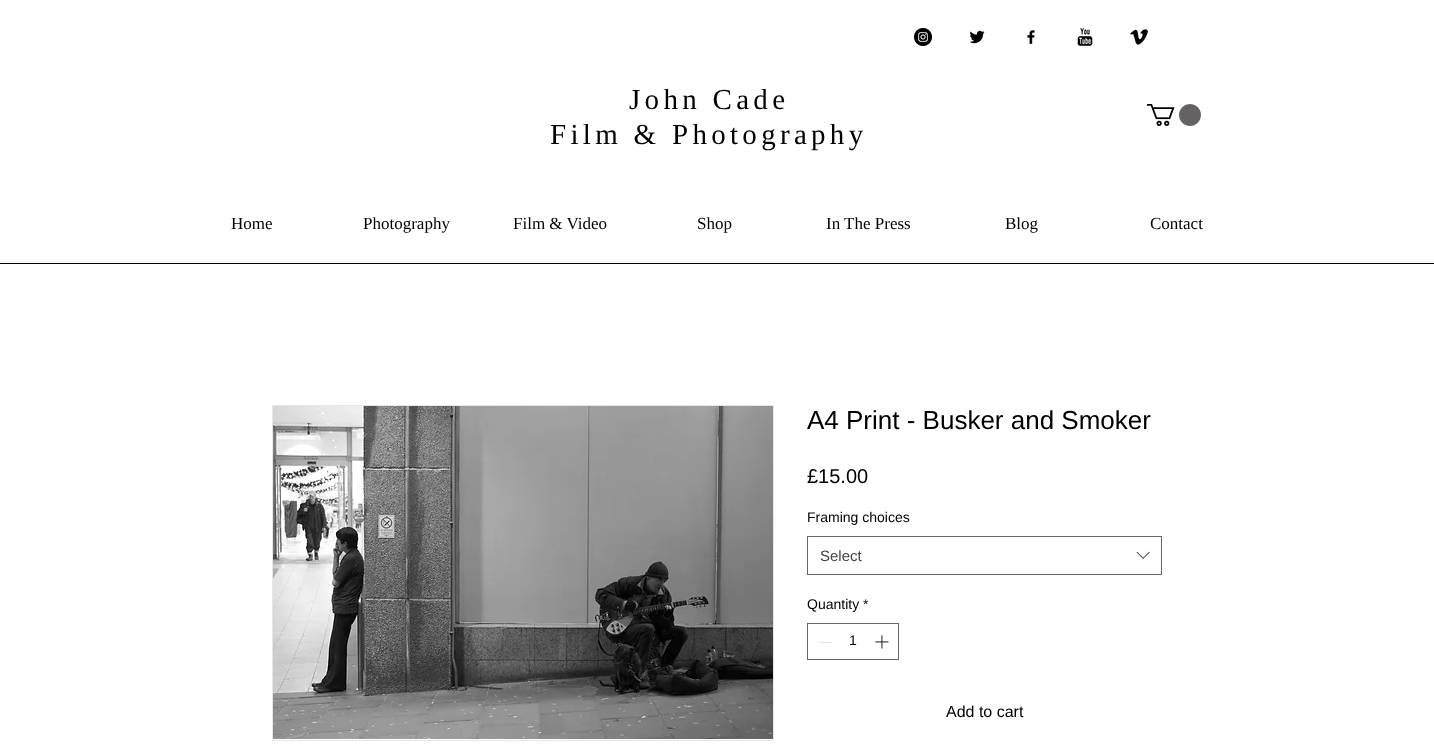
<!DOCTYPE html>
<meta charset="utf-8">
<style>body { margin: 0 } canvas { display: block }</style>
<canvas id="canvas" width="1434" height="748"></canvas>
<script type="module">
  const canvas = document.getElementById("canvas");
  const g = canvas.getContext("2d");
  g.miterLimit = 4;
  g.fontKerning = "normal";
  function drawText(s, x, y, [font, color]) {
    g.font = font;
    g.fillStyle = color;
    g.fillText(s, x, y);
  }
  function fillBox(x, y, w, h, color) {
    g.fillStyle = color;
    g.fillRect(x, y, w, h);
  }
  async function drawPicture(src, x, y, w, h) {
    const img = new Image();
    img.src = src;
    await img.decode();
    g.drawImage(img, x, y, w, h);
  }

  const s1 = ["29px Liberation Serif", "#000000"];
  const s2 = ["17px Liberation Serif", "#000000"];
  const s3 = ["26px Liberation Sans", "#000000"];
  const s4 = ["20px Liberation Sans", "#000000"];
  const s5 = ["14px Liberation Sans", "#000000"];
  const s6 = ["15px Liberation Sans", "#444444"];
  const s7 = ["16px Liberation Sans", "#000000"];

  fillBox(0, 0, 1434, 748, "#FFFFFF");
  await drawPicture("pic1.png", 914, 28, 18, 18);
  await drawPicture("pic2.png", 969, 30, 16, 14);
  await drawPicture("pic3.png", 1027, 30, 8, 14);
  await drawPicture("pic4.png", 1077, 28, 16, 18);
  await drawPicture("pic5.png", 1130, 29, 18, 16);
  g.letterSpacing = "4.3px";
  drawText("John Cade", 629, 109, s1);
  drawText("Film & Photography", 550, 144, s1);
  await drawPicture("pic6.png", 1147, 104, 54, 22);
  g.letterSpacing = "0px";
  drawText("Home", 231, 229, s2);
  drawText("Photography", 363, 229, s2);
  drawText("Film & Video", 513, 229, s2);
  drawText("Shop", 697, 229, s2);
  drawText("In The Press", 826, 229, s2);
  drawText("Blog", 1005, 229, s2);
  drawText("Contact", 1150, 229, s2);
  fillBox(0, 263, 1434, 1, "#000000");
  g.strokeStyle = "#E6E6E6";
  g.strokeRect(272.5, 405.5, 501, 335);
  await drawPicture("pic7.png", 273, 406, 500, 333);
  drawText("A4 Print - Busker and Smoker", 807, 429, s3);
  drawText("£15.00", 807, 483, s4);
  drawText("Framing choices", 807, 522, s5);
  g.strokeStyle = "#666666";
  g.strokeRect(807.5, 536.5, 354, 38);
  drawText("Select", 820, 561, s6);
  await drawPicture("pic8.png", 1136, 551, 14, 8);
  drawText("Quantity *", 807, 609, s5);
  g.strokeRect(807.5, 623.5, 91, 36);
  fillBox(819, 642, 13, 1, "#E3E3E3");
  drawText("1", 849, 645, s5);
  await drawPicture("pic9.png", 875, 635, 14, 14);
  drawText("Add to cart", 946, 717, s7);
</script>
